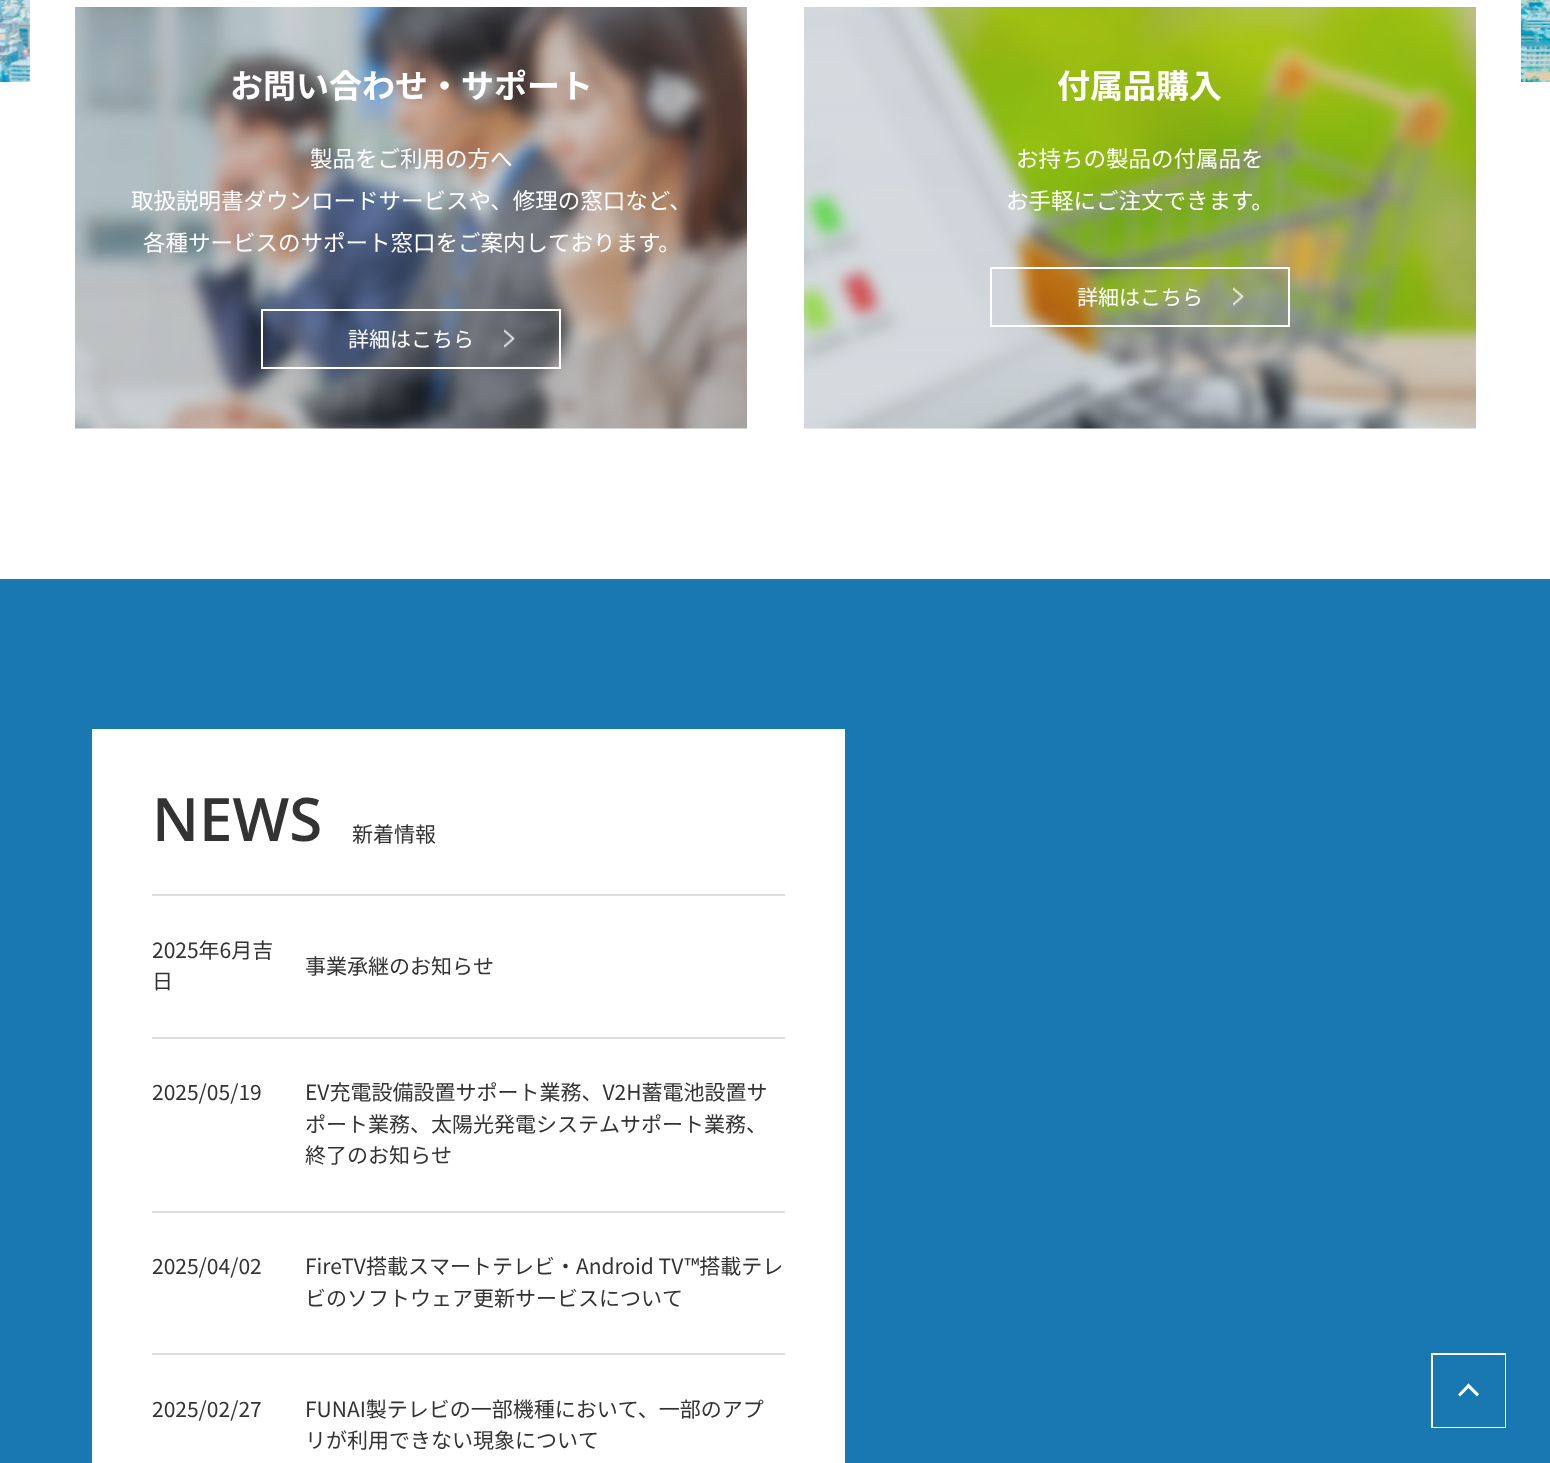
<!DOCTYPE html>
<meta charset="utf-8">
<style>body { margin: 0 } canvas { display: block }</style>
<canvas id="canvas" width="1550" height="1463"></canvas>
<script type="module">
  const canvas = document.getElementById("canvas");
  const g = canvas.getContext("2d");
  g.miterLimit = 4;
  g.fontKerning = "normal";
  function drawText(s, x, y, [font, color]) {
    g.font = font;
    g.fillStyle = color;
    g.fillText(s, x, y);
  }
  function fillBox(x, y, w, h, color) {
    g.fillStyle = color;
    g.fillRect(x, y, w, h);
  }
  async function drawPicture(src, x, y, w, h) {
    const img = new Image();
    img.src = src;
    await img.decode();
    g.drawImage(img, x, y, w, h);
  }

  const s1 = ["bold 33px Noto Sans JP", "#FFFFFF"];
  const s2 = ["22.5px Noto Sans JP", "#FFFFFF"];
  const s3 = ["21px Noto Sans JP", "#FFFFFF"];
  const s4 = ["600 60px Open Sans", "#333333"];
  const s5 = ["21px Noto Sans JP", "#333333"];

  fillBox(0, 0, 1550, 1463, "#FFFFFF");
  await drawPicture("pic1.png", 0, 0, 1550, 82);
  fillBox(30, 0, 1491, 82, "#FFFFFF");
  await drawPicture("pic2.png", 75, 7, 672, 422);
  drawText("お問い合わせ・サポート", 230, 98, s1);
  drawText("製品をご利用の方へ", 310, 167, s2);
  drawText("取扱説明書ダウンロードサービスや、修理の窓口など、", 131, 209, s2);
  drawText("各種サービスのサポート窓口をご案内しております。", 143, 251, s2);
  g.strokeStyle = "#FFFFFF";
  g.lineWidth = 2;
  g.strokeRect(262, 310, 298, 58);
  drawText("詳細はこちら", 348, 347, s3);
  await drawPicture("pic3.png", 504, 329, 11, 19);
  await drawPicture("pic4.png", 804, 7, 672, 422);
  drawText("付属品購入", 1057, 98, s1);
  drawText("お持ちの製品の付属品を", 1016, 167, s2);
  drawText("お手軽にご注文できます。", 1006, 209, s2);
  g.strokeRect(991, 268, 298, 58);
  drawText("詳細はこちら", 1077, 305, s3);
  await drawPicture("pic5.png", 1233, 287, 11, 19);
  fillBox(0, 579, 1550, 884, "#1978B1");
  fillBox(92, 729, 753, 734, "#FFFFFF");
  drawText("NEWS", 152, 841, s4);
  drawText("新着情報", 352, 842, s5);
  fillBox(152, 894, 633, 2, "#DDDDDD");
  drawText("2025年6月吉", 152, 958, s5);
  drawText("日", 152, 989, s5);
  drawText("事業承継のお知らせ", 305, 974, s5);
  fillBox(152, 1037, 633, 2, "#DDDDDD");
  drawText("2025/05/19", 152, 1100, s5);
  drawText("EV充電設備設置サポート業務、V2H蓄電池設置サ", 305, 1100, s5);
  drawText("ポート業務、太陽光発電システムサポート業務、", 305, 1132, s5);
  drawText("終了のお知らせ", 305, 1163, s5);
  fillBox(152, 1211, 633, 2, "#DDDDDD");
  drawText("2025/04/02", 152, 1274, s5);
  drawText("FireTV搭載スマートテレビ・Android TV™搭載テレ", 305, 1274, s5);
  drawText("ビのソフトウェア更新サービスについて", 305, 1306, s5);
  fillBox(152, 1353, 633, 2, "#DDDDDD");
  drawText("2025/02/27", 152, 1417, s5);
  drawText("FUNAI製テレビの一部機種において、一部のアプ", 305, 1417, s5);
  drawText("リが利用できない現象について", 305, 1448, s5);
  g.strokeRect(1432, 1354, 73, 73);
  fillBox(1433, 1355, 72, 72, "#1978B1");
  g.fillStyle = "#FFFFFF";
  g.beginPath();
  g.moveTo(1458, 1394.5);
  g.lineTo(1468.5, 1383.5);
  g.lineTo(1470.5, 1386);
  g.lineTo(1460, 1396.5);
  g.closePath();
  g.fill();
  g.beginPath();
  g.moveTo(1466.5, 1386);
  g.lineTo(1468.5, 1383.5);
  g.lineTo(1479, 1394);
  g.lineTo(1477, 1396.5);
  g.closePath();
  g.fill();
</script>
